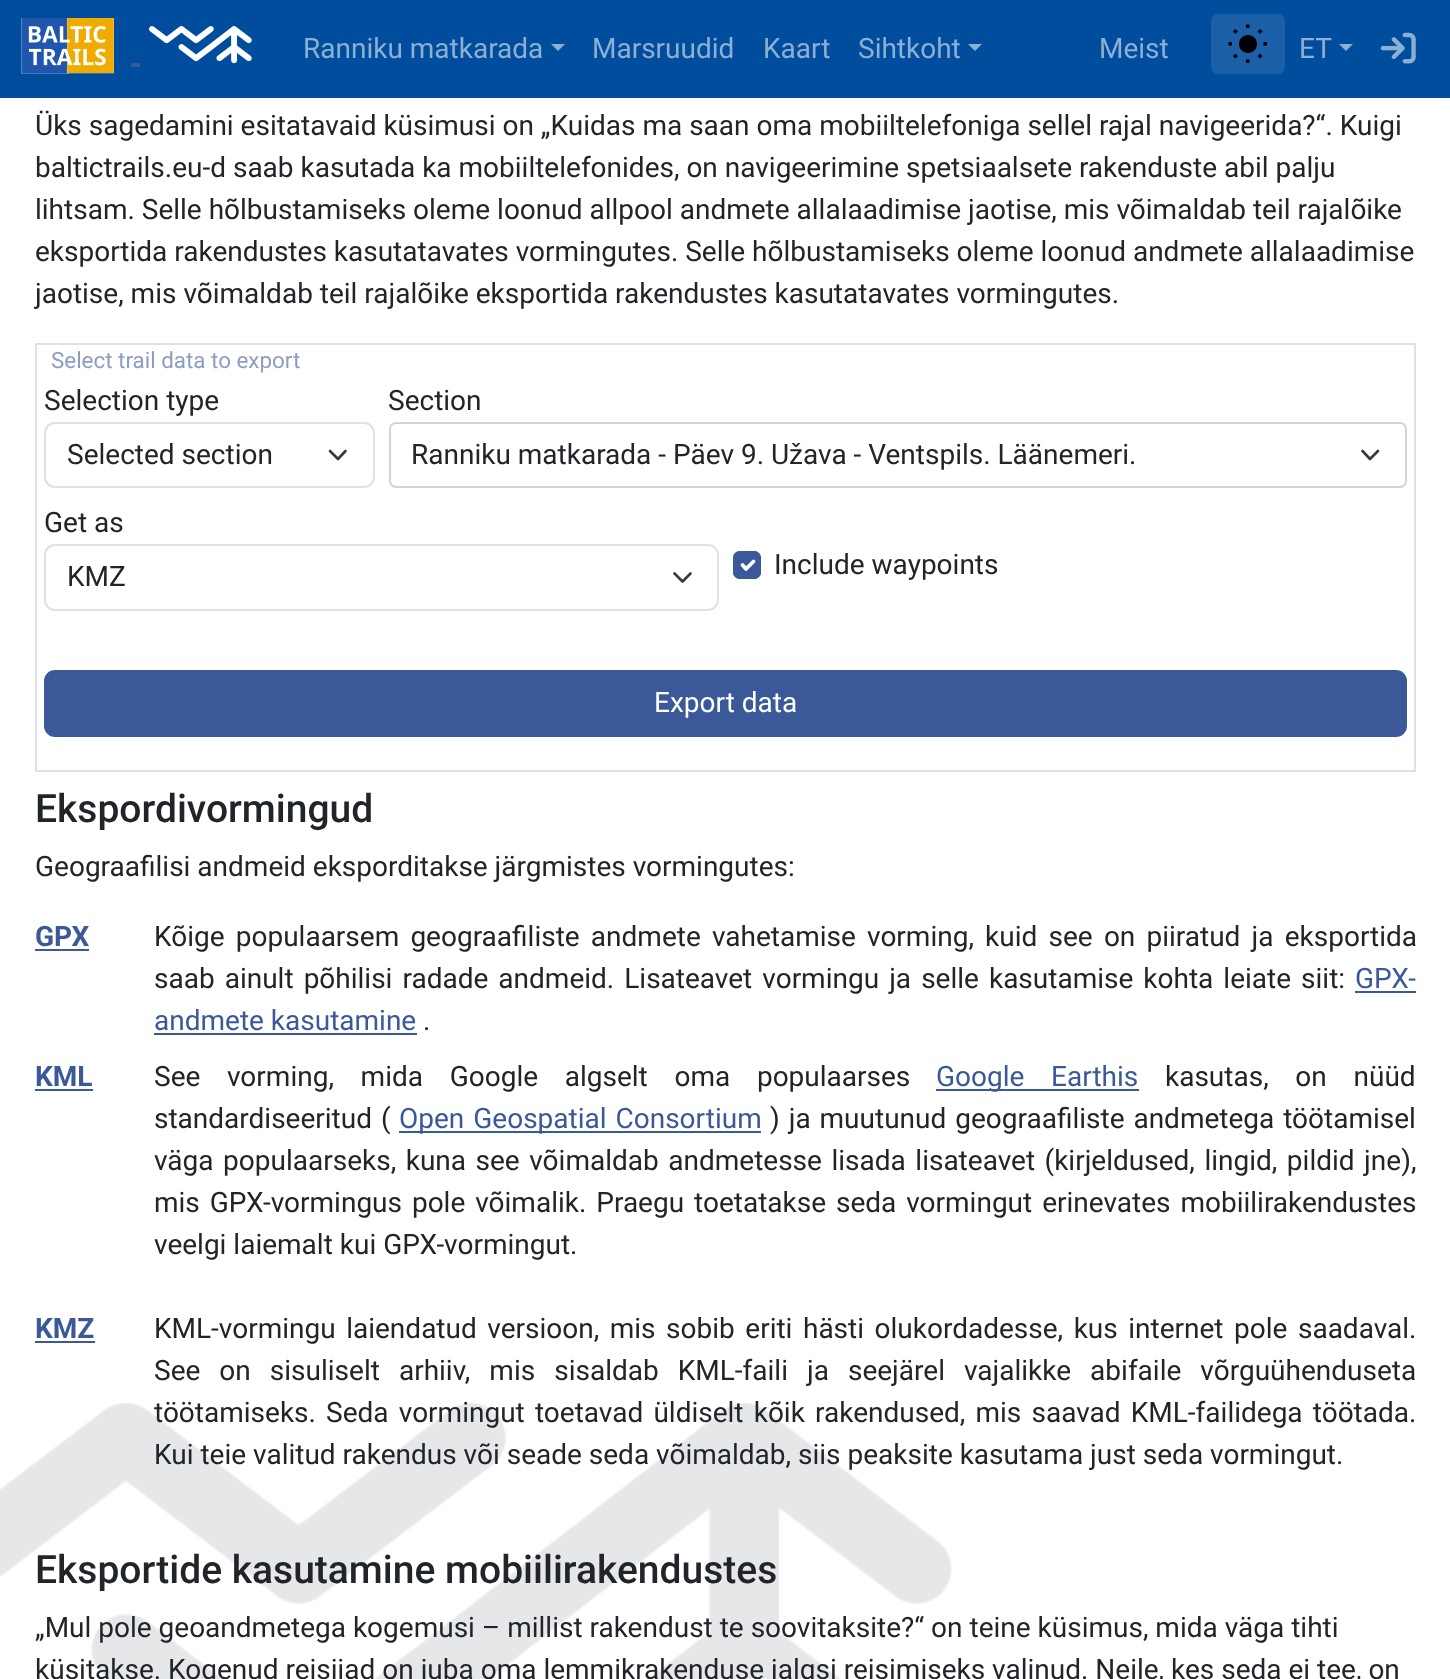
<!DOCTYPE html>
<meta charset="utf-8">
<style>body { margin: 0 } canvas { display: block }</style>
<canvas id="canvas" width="1450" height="1679"></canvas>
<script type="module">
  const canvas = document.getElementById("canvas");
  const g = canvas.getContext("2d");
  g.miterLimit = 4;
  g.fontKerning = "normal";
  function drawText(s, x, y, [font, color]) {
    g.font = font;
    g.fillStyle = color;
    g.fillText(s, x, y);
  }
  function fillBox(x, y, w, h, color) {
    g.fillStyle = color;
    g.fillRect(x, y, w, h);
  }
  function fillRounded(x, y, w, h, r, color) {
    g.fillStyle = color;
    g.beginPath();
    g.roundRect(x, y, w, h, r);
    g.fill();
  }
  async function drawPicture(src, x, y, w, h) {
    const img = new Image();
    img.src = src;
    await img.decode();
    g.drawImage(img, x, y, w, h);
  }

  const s1 = ["28px Roboto", "#8CAFD3"];
  const s2 = ["28px Roboto", "#212529"];
  const s3 = ["22.4px Roboto", "#8B9DC3"];
  const s4 = ["28px Roboto", "#FFFFFF"];
  const s5 = ["500 39px Roboto", "#212529"];
  const s6 = ["bold 28px Roboto", "#3B5998"];
  const s7 = ["28px Roboto", "#3B5998"];

  fillBox(0, 0, 1450, 1679, "#FFFFFF");
  await drawPicture("pic1.png", 0, 1402, 952, 277);
  fillBox(0, 0, 1450, 98, "#004D9E");
  await drawPicture("pic2.png", 21, 18, 93, 56);
  await drawPicture("pic3.png", 149, 26, 103, 38);
  fillBox(131, 63, 9, 4, "#3B5998");
  drawText("Ranniku matkarada", 303, 58, s1);
  g.beginPath();
  g.moveTo(551, 44);
  g.lineTo(565, 44);
  g.lineTo(558, 51);
  g.closePath();
  g.fill();
  drawText("Marsruudid", 592, 58, s1);
  drawText("Kaart", 763, 58, s1);
  drawText("Sihtkoht", 858, 58, s1);
  g.beginPath();
  g.moveTo(968, 44);
  g.lineTo(982, 44);
  g.lineTo(975, 51);
  g.closePath();
  g.fill();
  drawText("Meist", 1099, 58, s1);
  fillRounded(1211, 14, 74, 60, 7, "#1A5FA8");
  await drawPicture("pic4.png", 1228, 24, 39, 39);
  drawText("ET", 1299, 58, s1);
  g.beginPath();
  g.moveTo(1339, 44);
  g.lineTo(1353, 44);
  g.lineTo(1346, 51);
  g.closePath();
  g.fill();
  await drawPicture("pic5.png", 1380, 32, 36, 32);
  drawText("Üks sagedamini esitatavaid küsimusi on „Kuidas ma saan oma mobiiltelefoniga sellel rajal navigeerida?“. Kuigi", 35, 135, s2);
  drawText("baltictrails.eu-d saab kasutada ka mobiiltelefonides, on navigeerimine spetsiaalsete rakenduste abil palju", 35, 177, s2);
  drawText("lihtsam. Selle hõlbustamiseks oleme loonud allpool andmete allalaadimise jaotise, mis võimaldab teil rajalõike", 35, 219, s2);
  drawText("eksportida rakendustes kasutatavates vormingutes. Selle hõlbustamiseks oleme loonud andmete allalaadimise", 35, 261, s2);
  drawText("jaotise, mis võimaldab teil rajalõike eksportida rakendustes kasutatavates vormingutes.", 35, 303, s2);
  g.strokeStyle = "#DEE2E6";
  g.lineWidth = 2;
  g.strokeRect(36, 344, 1379, 427);
  drawText("Select trail data to export", 51, 368, s3);
  drawText("Selection type", 44, 410, s2);
  g.beginPath();
  g.moveTo(330, 451);
  g.lineTo(338, 459);
  g.lineTo(345.5, 451);
  g.strokeStyle = "#343A40";
  g.lineWidth = 2.6;
  g.lineCap = "round";
  g.lineJoin = "round";
  g.stroke();
  g.beginPath();
  g.roundRect(45, 423, 329, 64, 10);
  g.strokeStyle = "#DEE2E6";
  g.lineWidth = 2;
  g.lineJoin = "miter";
  g.stroke();
  drawText("Selected section", 67, 464, s2);
  drawText("Section", 388, 410, s2);
  g.beginPath();
  g.moveTo(1362.5, 451);
  g.lineTo(1370, 459);
  g.lineTo(1378, 451);
  g.strokeStyle = "#343A40";
  g.lineWidth = 2.6;
  g.lineJoin = "round";
  g.stroke();
  g.beginPath();
  g.roundRect(390, 423, 1016, 64, 6);
  g.strokeStyle = "#CED4DA";
  g.lineWidth = 2;
  g.lineJoin = "miter";
  g.stroke();
  drawText("Ranniku matkarada - Päev 9. Užava - Ventspils. Läänemeri.", 411, 464, s2);
  drawText("Get as", 44, 532, s2);
  g.beginPath();
  g.moveTo(674.5, 573.5);
  g.lineTo(682.5, 581.5);
  g.lineTo(690.5, 573.5);
  g.strokeStyle = "#343A40";
  g.lineWidth = 2.6;
  g.lineJoin = "round";
  g.stroke();
  g.beginPath();
  g.roundRect(45, 545, 673, 65, 10);
  g.strokeStyle = "#DEE2E6";
  g.lineWidth = 2;
  g.lineJoin = "miter";
  g.stroke();
  drawText("KMZ", 67, 586, s2);
  fillRounded(733, 551, 28, 28, 7, "#3B5998");
  g.beginPath();
  g.moveTo(742.5, 565);
  g.lineTo(746, 569);
  g.lineTo(753.5, 561.5);
  g.strokeStyle = "#FFFFFF";
  g.lineWidth = 3.7;
  g.lineJoin = "round";
  g.stroke();
  g.beginPath();
  g.roundRect(734, 552, 26, 26, 6);
  g.strokeStyle = "#3B5998";
  g.lineWidth = 2;
  g.lineJoin = "miter";
  g.stroke();
  drawText("Include waypoints", 774, 574, s2);
  g.fillStyle = "#3B5998";
  g.beginPath();
  g.roundRect(45, 671, 1361, 65, 10);
  g.fill();
  g.stroke();
  drawText("Export data", 654, 712, s4);
  drawText("Ekspordivormingud", 35, 822, s5);
  drawText("Geograafilisi andmeid eksporditakse järgmistes vormingutes:", 35, 876, s2);
  drawText("GPX", 35, 946, s6);
  fillBox(35, 949, 54, 2, "#3B5998");
  g.wordSpacing = "4.25px";
  drawText("Kõige populaarsem geograafiliste andmete vahetamise vorming, kuid see on piiratud ja eksportida", 154, 946, s2);
  g.wordSpacing = "3.1px";
  drawText("saab ainult põhilisi radade andmeid. Lisateavet vormingu ja selle kasutamise kohta leiate siit:", 154, 988, s2);
  g.wordSpacing = "0px";
  drawText("GPX-", 1355, 988, s7);
  fillBox(1355, 991, 61, 2, "#3B5998");
  drawText("andmete kasutamine", 154, 1030, s7);
  fillBox(154, 1033, 263, 2, "#3B5998");
  drawText(".", 423, 1030, s2);
  drawText("KML", 35, 1086, s6);
  fillBox(35, 1089, 58, 2, "#3B5998");
  g.wordSpacing = "19.75px";
  drawText("See vorming, mida Google algselt oma populaarses", 154, 1086, s2);
  fillBox(936, 1089, 203, 2, "#3B5998");
  drawText("Google Earthis", 936, 1086, s7);
  drawText("kasutas, on nüüd", 1165, 1086, s2);
  g.wordSpacing = "2px";
  drawText("standardiseeritud (", 154, 1128, s2);
  fillBox(399, 1131, 362, 2, "#3B5998");
  drawText("Open Geospatial Consortium", 399, 1128, s7);
  drawText(") ja muutunud geograafiliste andmetega töötamisel", 770, 1128, s2);
  g.wordSpacing = "2.6px";
  drawText("väga populaarseks, kuna see võimaldab andmetesse lisada lisateavet (kirjeldused, lingid, pildid jne),", 154, 1170, s2);
  g.wordSpacing = "3px";
  drawText("mis GPX-vormingus pole võimalik. Praegu toetatakse seda vormingut erinevates mobiilirakendustes", 154, 1212, s2);
  g.wordSpacing = "0px";
  drawText("veelgi laiemalt kui GPX-vormingut.", 154, 1254, s2);
  drawText("KMZ", 35, 1338, s6);
  fillBox(35, 1341, 60, 2, "#3B5998");
  g.wordSpacing = "3.6px";
  drawText("KML-vormingu laiendatud versioon, mis sobib eriti hästi olukordadesse, kus internet pole saadaval.", 154, 1338, s2);
  g.wordSpacing = "12.1px";
  drawText("See on sisuliselt arhiiv, mis sisaldab KML-faili ja seejärel vajalikke abifaile võrguühenduseta", 154, 1380, s2);
  g.wordSpacing = "3.25px";
  drawText("töötamiseks. Seda vormingut toetavad üldiselt kõik rakendused, mis saavad KML-failidega töötada.", 154, 1422, s2);
  g.wordSpacing = "0px";
  drawText("Kui teie valitud rakendus või seade seda võimaldab, siis peaksite kasutama just seda vormingut.", 154, 1464, s2);
  drawText("Eksportide kasutamine mobiilirakendustes", 35, 1583, s5);
  drawText("„Mul pole geoandmetega kogemusi – millist rakendust te soovitaksite?“ on teine küsimus, mida väga tihti", 35, 1637, s2);
  drawText("küsitakse. Kogenud reisijad on juba oma lemmikrakenduse jalgsi reisimiseks valinud. Neile, kes seda ei tee, on", 35, 1679, s2);
</script>
